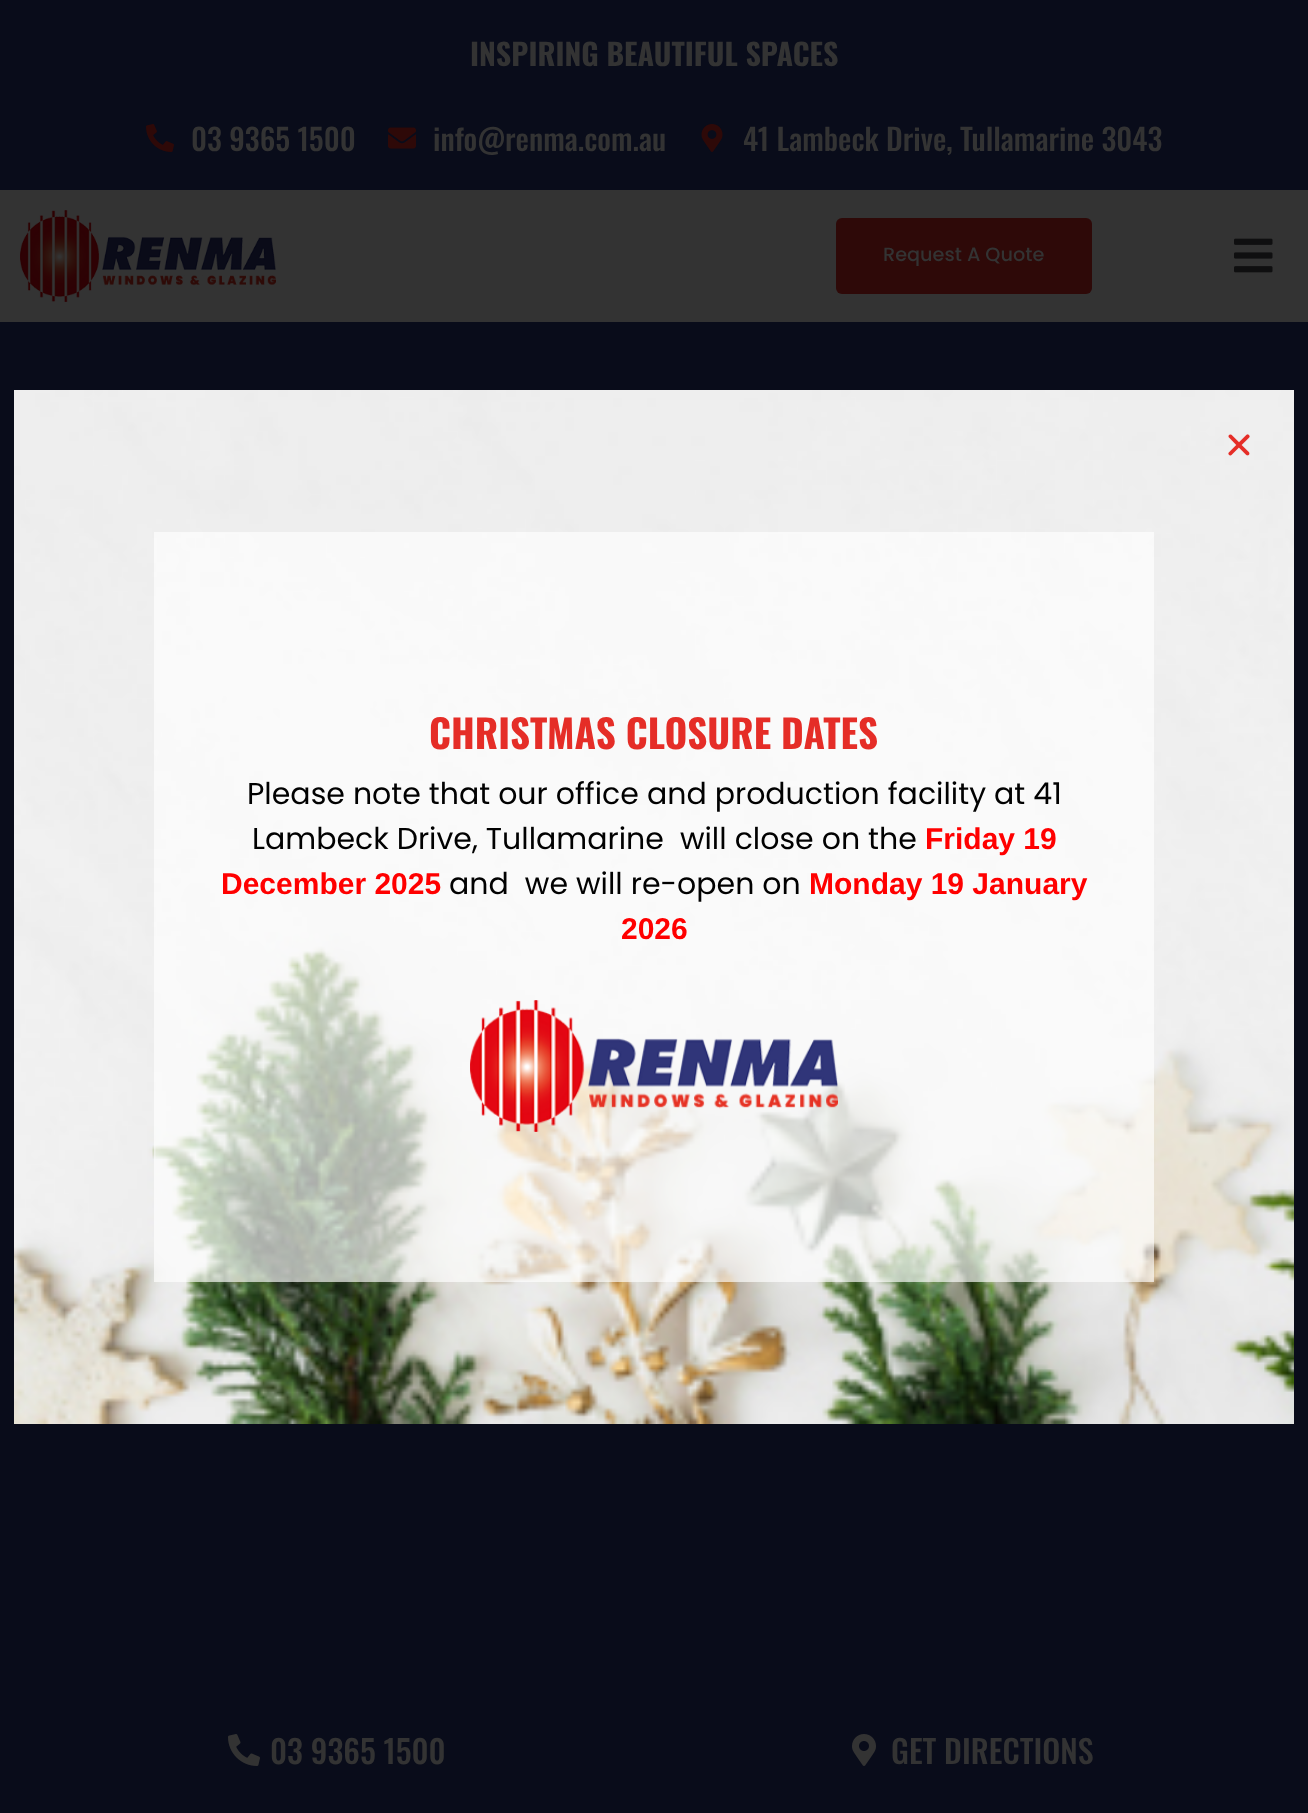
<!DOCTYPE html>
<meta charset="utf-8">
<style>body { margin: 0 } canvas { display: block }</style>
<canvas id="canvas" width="1308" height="1813"></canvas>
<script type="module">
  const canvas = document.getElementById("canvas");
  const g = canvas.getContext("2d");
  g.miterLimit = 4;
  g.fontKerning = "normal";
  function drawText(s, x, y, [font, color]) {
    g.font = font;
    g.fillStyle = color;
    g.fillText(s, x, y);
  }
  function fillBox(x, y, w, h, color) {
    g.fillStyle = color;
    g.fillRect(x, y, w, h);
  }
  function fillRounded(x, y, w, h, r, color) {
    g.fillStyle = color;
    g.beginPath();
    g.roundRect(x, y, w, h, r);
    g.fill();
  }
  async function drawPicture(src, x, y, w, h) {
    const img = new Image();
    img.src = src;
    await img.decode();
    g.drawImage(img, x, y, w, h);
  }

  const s1 = ["bold 30px Oswald", "#333333"];
  const s2 = ["500 30px Oswald", "#333333"];
  const s3 = ["500 19.25px Poppins", "#333333"];
  const s4 = ["bold 39px Oswald", "#E52D27"];
  const s5 = ["30px Poppins", "#010101"];
  const s6 = ["bold 30px Liberation Sans", "#FF0000"];
  const s7 = ["500 32px Oswald", "#333333"];

  fillBox(0, 0, 1308, 1813, "#333333");
  fillBox(0, 0, 1308, 190, "#090C1A");
  drawText("INSPIRING BEAUTIFUL SPACES", 470, 66, s1);
  await drawPicture("pic1.png", 146, 124, 28, 28);
  drawText("03 9365 1500", 191, 151, s2);
  await drawPicture("pic2.png", 388, 127, 28, 22);
  drawText("info@renma.com.au", 433, 151, s2);
  await drawPicture("pic3.png", 701, 124, 22, 28);
  drawText("41 Lambeck Drive, Tullamarine 3043", 743, 151, s2);
  await drawPicture("pic4.png", 20, 210, 256, 92);
  fillRounded(836, 218, 256, 76, 6, "#2E0908");
  drawText("Request A Quote", 883, 261, s3);
  await drawPicture("pic5.png", 1234, 238, 39, 35);
  fillBox(0, 322, 1308, 1491, "#090C1A");
  await drawPicture("pic7.png", 14, 390, 1280, 1034);
  await drawPicture("pic6.png", 1228, 434, 22, 22);
  fillBox(154, 532, 1000, 750, "rgba(255, 255, 255, 0.66)");
  drawText("CHRISTMAS CLOSURE DATES", 429, 749, s4);
  drawText("Please note that our office and production facility at 41", 247, 804, s5);
  drawText("Lambeck Drive, Tullamarine  will close on the", 252, 849, s5);
  drawText("Friday 19", 925, 849, s6);
  drawText("December 2025", 221, 894, s6);
  drawText("and  we will re-open on", 449, 894, s5);
  drawText("Monday 19 January", 809, 894, s6);
  drawText("2026", 621, 939, s6);
  await drawPicture("pic8.png", 470, 1000, 368, 132);
  await drawPicture("pic9.png", 228, 1734, 32, 32);
  drawText("03 9365 1500", 270, 1764, s7);
  await drawPicture("pic10.png", 852, 1734, 24, 32);
  drawText("GET DIRECTIONS", 891, 1764, s7);
</script>
